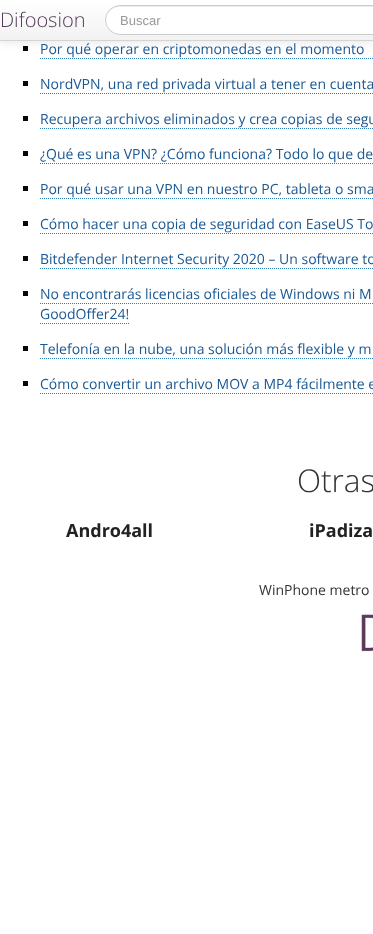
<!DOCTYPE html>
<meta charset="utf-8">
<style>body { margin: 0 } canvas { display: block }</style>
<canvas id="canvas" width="373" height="934"></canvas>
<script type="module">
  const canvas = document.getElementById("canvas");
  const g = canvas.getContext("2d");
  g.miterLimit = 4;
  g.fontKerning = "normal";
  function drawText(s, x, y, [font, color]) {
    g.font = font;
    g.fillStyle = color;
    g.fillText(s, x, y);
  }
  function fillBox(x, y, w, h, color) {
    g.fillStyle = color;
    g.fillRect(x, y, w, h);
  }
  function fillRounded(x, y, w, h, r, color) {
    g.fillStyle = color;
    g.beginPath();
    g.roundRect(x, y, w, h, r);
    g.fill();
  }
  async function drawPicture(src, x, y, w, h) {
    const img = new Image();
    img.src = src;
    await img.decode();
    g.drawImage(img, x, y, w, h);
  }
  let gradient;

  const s1 = ["300 20px Open Sans", "#543A59"];
  const s2 = ["13px Liberation Sans", "#999999"];
  const s3 = ["14px Open Sans", "#1A5893"];
  const s4 = ["300 31.5px Open Sans", "#333333"];
  const s5 = ["bold 18px Open Sans", "#222221"];
  const s6 = ["14px Open Sans", "#333333"];

  fillBox(0, 0, 373, 934, "#FFFFFF");
  fillBox(23, 46, 5, 5, "#090603");
  g.fillStyle = "rgba(0, 0, 0, 0.1)";
  g.filter = "blur(5px)";
  g.beginPath();
  g.rect(0, 1, 373, 41);
  g.fill();
  g.filter = "none";
  gradient = g.createLinearGradient(187, 0, 187, 40);
  gradient.addColorStop(0, "#FFFFFF");
  gradient.addColorStop(1, "#F2F2F2");
  g.fillStyle = gradient;
  g.fillRect(0, 0, 373, 40);
  fillBox(0, 40, 373, 1, "#D4D4D4");
  drawText("Difoosion", 0, 27, s1);
  fillRounded(105, 5, 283, 30, 15, "#FFFFFF");
  g.fillStyle = "#ECECEC";
  g.beginPath();
  g.moveTo(120, 7);
  g.lineTo(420, 7);
  g.bezierCurveTo(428, 7, 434, 13, 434, 20);
  g.bezierCurveTo(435, -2, 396, 6, 370, 6);
  g.lineTo(120, 6);
  g.bezierCurveTo(112, 6, 106, 13, 106, 20);
  g.bezierCurveTo(106, 13, 112, 7, 120, 7);
  g.closePath();
  g.fill();
  g.beginPath();
  g.roundRect(105.5, 5.5, 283, 29, 14.5);
  g.strokeStyle = "#CCCCCC";
  g.stroke();
  drawText("Buscar", 120, 25, s2);
  drawText("Por qué operar en criptomonedas en el momento", 40, 54, s3);
  g.beginPath();
  g.moveTo(40, 58.5);
  g.lineTo(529, 58.5);
  g.strokeStyle = "#287DBD";
  g.setLineDash([1, 1]);
  g.stroke();
  fillBox(23, 81, 5, 5, "#090603");
  drawText("NordVPN, una red privada virtual a tener en cuenta", 40, 89, s3);
  g.beginPath();
  g.moveTo(40, 93.5);
  g.lineTo(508, 93.5);
  g.stroke();
  fillBox(23, 116, 5, 5, "#090603");
  drawText("Recupera archivos eliminados y crea copias de segu", 40, 124, s3);
  g.beginPath();
  g.moveTo(40, 128.5);
  g.lineTo(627, 128.5);
  g.stroke();
  fillBox(23, 151, 5, 5, "#090603");
  drawText("¿Qué es una VPN? ¿Cómo funciona? Todo lo que de", 40, 159, s3);
  g.beginPath();
  g.moveTo(40, 163.5);
  g.lineTo(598, 163.5);
  g.stroke();
  fillBox(23, 186, 5, 5, "#090603");
  drawText("Por qué usar una VPN en nuestro PC, tableta o sma", 40, 194, s3);
  g.beginPath();
  g.moveTo(40, 198.5);
  g.lineTo(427, 198.5);
  g.stroke();
  fillBox(23, 221, 5, 5, "#090603");
  drawText("Cómo hacer una copia de seguridad con EaseUS To", 40, 229, s3);
  g.beginPath();
  g.moveTo(40, 233.5);
  g.lineTo(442, 233.5);
  g.stroke();
  fillBox(23, 256, 5, 5, "#090603");
  drawText("Bitdefender Internet Security 2020 – Un software to", 40, 264, s3);
  g.beginPath();
  g.moveTo(40, 268.5);
  g.lineTo(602, 268.5);
  g.stroke();
  fillBox(23, 291, 5, 5, "#090603");
  drawText("No encontrarás licencias oficiales de Windows ni M", 40, 299, s3);
  g.beginPath();
  g.moveTo(40, 303.5);
  g.lineTo(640, 303.5);
  g.stroke();
  drawText("GoodOffer24!", 40, 319, s3);
  g.beginPath();
  g.moveTo(40, 323.5);
  g.lineTo(129, 323.5);
  g.stroke();
  fillBox(23, 346, 5, 5, "#090603");
  drawText("Telefonía en la nube, una solución más flexible y m", 40, 354, s3);
  g.beginPath();
  g.moveTo(40, 358.5);
  g.lineTo(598, 358.5);
  g.stroke();
  fillBox(23, 381, 5, 5, "#090603");
  drawText("Cómo convertir un archivo MOV a MP4 fácilmente e", 40, 389, s3);
  g.beginPath();
  g.moveTo(40, 393.5);
  g.lineTo(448, 393.5);
  g.stroke();
  drawText("Otras", 297, 492, s4);
  drawText("Andro4all", 66, 537, s5);
  drawText("iPadiza", 309, 537, s5);
  drawText("WinPhone metro", 259, 595, s6);
  await drawPicture("pic1.png", 361, 614, 12, 38);
</script>
